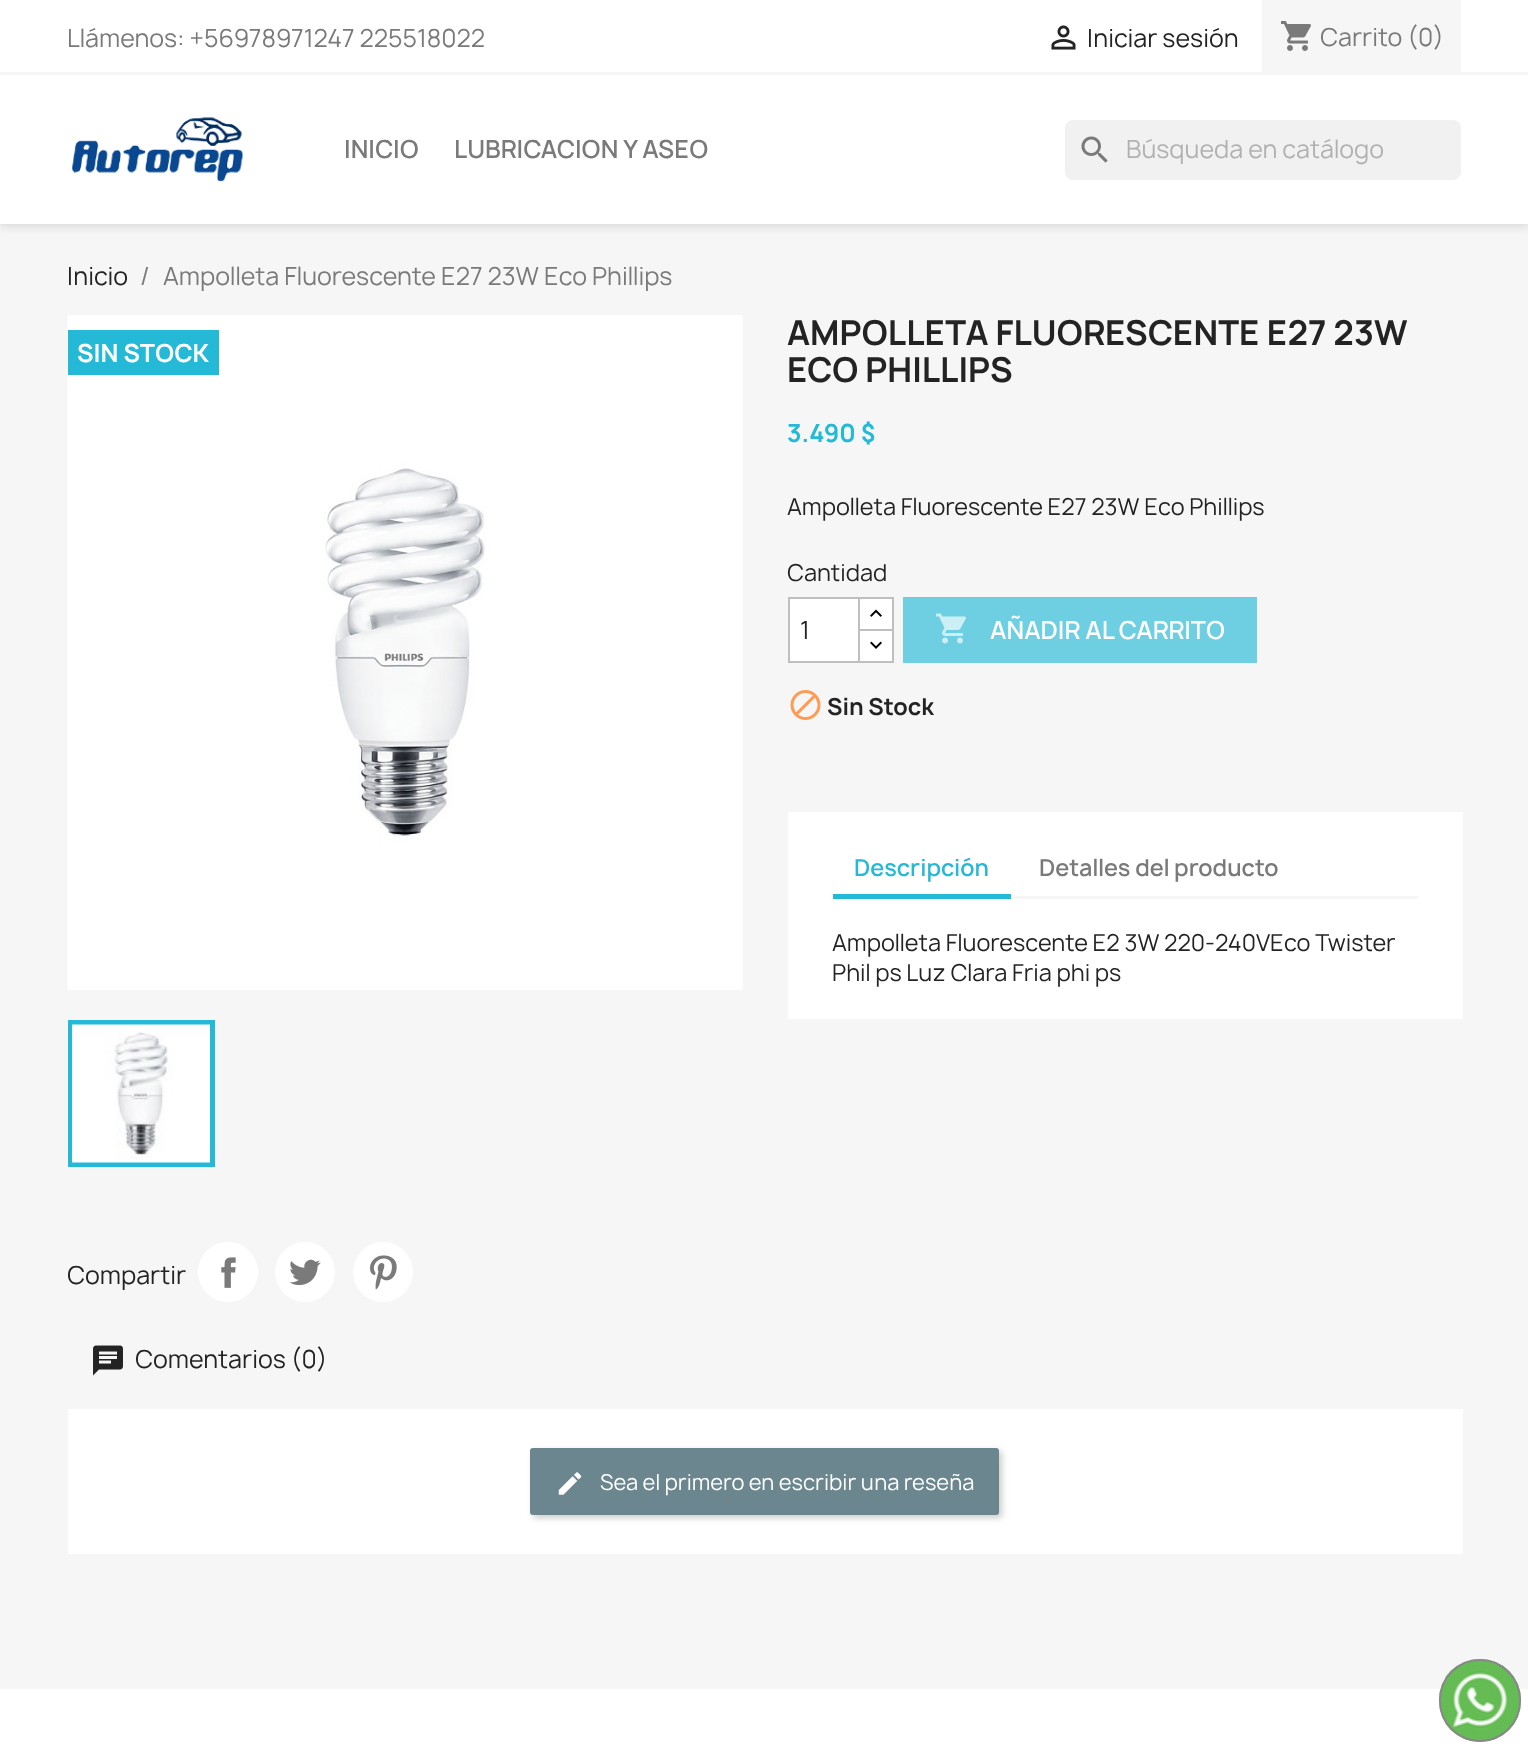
<!DOCTYPE html>
<meta charset="utf-8">
<style>body { margin: 0 } canvas { display: block }</style>
<canvas id="canvas" width="1528" height="1749"></canvas>
<script type="module">
  const canvas = document.getElementById("canvas");
  const g = canvas.getContext("2d");
  g.miterLimit = 4;
  g.fontKerning = "normal";
  function drawText(s, x, y, [font, color]) {
    g.font = font;
    g.fillStyle = color;
    g.fillText(s, x, y);
  }
  function fillBox(x, y, w, h, color) {
    g.fillStyle = color;
    g.fillRect(x, y, w, h);
  }
  function fillRounded(x, y, w, h, r, color) {
    g.fillStyle = color;
    g.beginPath();
    g.roundRect(x, y, w, h, r);
    g.fill();
  }
  async function drawPicture(src, x, y, w, h) {
    const img = new Image();
    img.src = src;
    await img.decode();
    g.drawImage(img, x, y, w, h);
  }

  const s1 = ["24px Manrope", "#7A7A7A"];
  const s2 = ["24px Manrope", "#232323"];
  const s3 = ["600 24px Manrope", "#7A7A7A"];
  const s4 = ["24px Manrope", "#B1B1B1"];
  const s5 = ["bold 24px Manrope", "#FFFFFF"];
  const s6 = ["bold 33px Manrope", "#232323"];
  const s7 = ["bold 24px Manrope", "#24B9D7"];
  const s8 = ["22.5px Manrope", "#232323"];
  const s9 = ["600 24px Manrope", "#FFFFFF"];
  const s10 = ["bold 22.5px Manrope", "#232323"];
  const s11 = ["600 22.5px Manrope", "#24B9D7"];
  const s12 = ["600 22.5px Manrope", "#7A7A7A"];
  const s13 = ["21px Manrope", "#FFFFFF"];

  fillBox(0, 0, 1528, 1749, "#FFFFFF");
  fillBox(0, 224, 1528, 1465, "#F6F6F6");
  g.fillStyle = "rgba(0, 0, 0, 0.11)";
  g.filter = "blur(4px)";
  g.beginPath();
  g.rect(0, 3, 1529, 224);
  g.fill();
  g.filter = "none";
  fillBox(0, 0, 1528, 224, "#FFFFFF");
  fillBox(0, 72, 1528, 3, "#F6F6F6");
  drawText("Llámenos: +56978971247 225518022", 67, 47, s1);
  await drawPicture("pic1.png", 1051, 25, 25, 25);
  drawText("Iniciar sesión", 1087, 47, s2);
  fillBox(1262, 0, 199, 72, "#F6F6F6");
  await drawPicture("pic2.png", 1281, 21, 30, 30);
  drawText("Carrito (0)", 1320, 46, s1);
  await drawPicture("pic3.png", 72, 117, 172, 65);
  drawText("INICIO", 344, 158, s3);
  drawText("LUBRICACION Y ASEO", 454, 158, s3);
  fillRounded(1065, 120, 396, 60, 8, "#F1F1F1");
  await drawPicture("pic4.png", 1081, 136, 27, 27);
  drawText("Búsqueda en catálogo", 1126, 158, s4);
  fillRounded(1439, 1659, 82, 83, 41, "#65BC54");
  await drawPicture("pic5.png", 1445, 1666, 69, 68);
  g.beginPath();
  g.roundRect(1440, 1660, 80, 81, 40);
  g.strokeStyle = "#888888";
  g.lineWidth = 2;
  g.stroke();
  drawText("Inicio", 67, 285, s2);
  drawText("/", 140, 285, s1);
  drawText("Ampolleta Fluorescente E27 23W Eco Phillips", 163, 285, s1);
  await drawPicture("pic6.png", 67, 315, 419, 675);
  fillBox(486, 315, 257, 675, "#FFFFFF");
  g.strokeStyle = "#24B9D7";
  g.lineWidth = 5;
  g.strokeRect(70.5, 1022.5, 142, 142);
  await drawPicture("pic7.png", 72, 1024, 138, 139);
  fillBox(68, 330, 151, 45, "#24B9D7");
  drawText("SIN STOCK", 77, 362, s5);
  drawText("AMPOLLETA FLUORESCENTE E27 23W", 787, 345, s6);
  drawText("ECO PHILLIPS", 787, 382, s6);
  drawText("3.490 $", 787, 442, s7);
  drawText("Ampolleta Fluorescente E27 23W Eco Phillips", 787, 515, s8);
  drawText("Cantidad", 787, 581, s8);
  fillBox(860, 599, 32, 30, "#FFFFFF");
  g.strokeStyle = "#BFBFBF";
  g.lineWidth = 2;
  g.strokeRect(859, 598, 34, 33);
  g.beginPath();
  g.rect(859, 630, 34, 32);
  g.fill();
  g.stroke();
  g.beginPath();
  g.rect(789, 598, 70, 64);
  g.fill();
  g.stroke();
  drawText("1", 800, 639, s2);
  await drawPicture("pic8.png", 870, 609, 12, 8);
  await drawPicture("pic9.png", 870, 641, 12, 8);
  fillBox(903, 597, 354, 66, "#6ECEE2");
  await drawPicture("pic10.png", 936, 613, 30, 31);
  drawText("AÑADIR AL CARRITO", 990, 639, s9);
  await drawPicture("pic11.png", 790, 690, 31, 30);
  drawText("Sin Stock", 827, 715, s10);
  fillBox(788, 812, 675, 207, "#FFFFFF");
  fillBox(1011, 896, 407, 3, "#F6F6F6");
  fillBox(833, 894, 178, 5, "#24B9D7");
  drawText("Descripción", 854, 876, s11);
  drawText("Detalles del producto", 1039, 876, s12);
  drawText("Ampolleta Fluorescente E2 3W 220-240VEco Twister", 832, 951, s8);
  drawText("Phil ps Luz Clara Fria phi ps", 832, 981, s8);
  drawText("Compartir", 67, 1284, s2);
  g.fillStyle = "#FFFFFF";
  g.beginPath();
  g.arc(228, 1272, 30, 0, Math.PI * 2);
  g.fill();
  await drawPicture("pic12.png", 221, 1257, 15, 31);
  g.beginPath();
  g.arc(305, 1272, 30, 0, Math.PI * 2);
  g.fill();
  await drawPicture("pic13.png", 289, 1259, 32, 26);
  g.beginPath();
  g.arc(383, 1272, 30, 0, Math.PI * 2);
  g.fill();
  await drawPicture("pic14.png", 370, 1255, 27, 35);
  await drawPicture("pic15.png", 93, 1345, 30, 31);
  drawText("Comentarios (0)", 135, 1368, s2);
  fillBox(68, 1409, 1395, 145, "#FFFFFF");
  g.fillStyle = "rgba(0, 0, 0, 0.2)";
  g.filter = "blur(3px)";
  g.beginPath();
  g.roundRect(533, 1451, 469, 67, 3);
  g.fill();
  g.filter = "none";
  fillRounded(530, 1448, 469, 67, 3, "#6B868F");
  await drawPicture("pic16.png", 558, 1472, 24, 23);
  drawText("Sea el primero en escribir una reseña", 600, 1490, s13);
</script>
